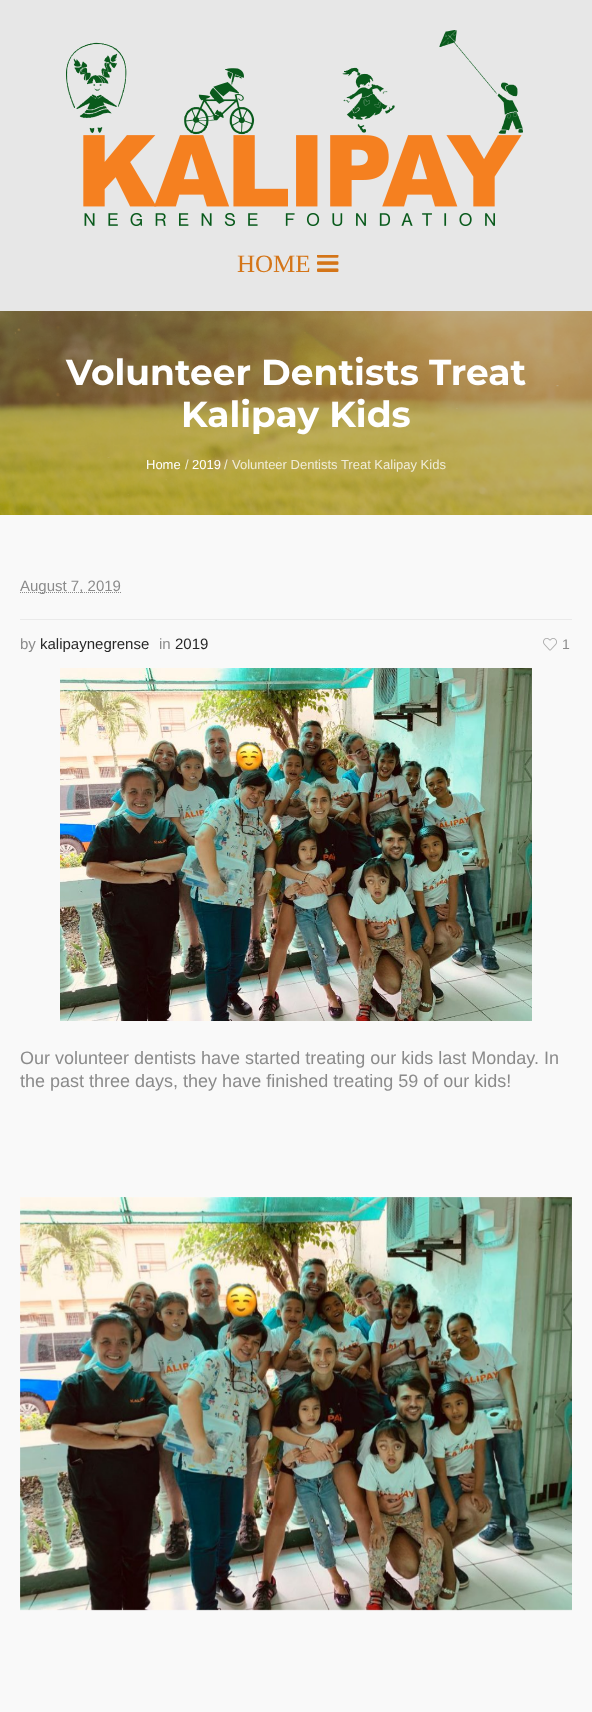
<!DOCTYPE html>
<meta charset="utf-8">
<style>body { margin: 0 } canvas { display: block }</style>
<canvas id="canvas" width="592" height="1712"></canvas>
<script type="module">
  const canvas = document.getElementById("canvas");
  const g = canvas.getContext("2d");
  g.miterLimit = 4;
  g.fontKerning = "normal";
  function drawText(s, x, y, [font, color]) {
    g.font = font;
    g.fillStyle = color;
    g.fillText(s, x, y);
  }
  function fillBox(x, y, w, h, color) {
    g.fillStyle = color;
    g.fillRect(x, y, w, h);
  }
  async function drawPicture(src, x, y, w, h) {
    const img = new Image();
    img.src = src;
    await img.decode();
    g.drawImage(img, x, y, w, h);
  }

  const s1 = ["25px Liberation Serif", "#D47518"];
  const s2 = ["bold 36px Montserrat", "#FFFFFF"];
  const s3 = ["13px Liberation Sans", "#FFFFFF"];
  const s4 = ["13px Liberation Sans", "#F0ECD8"];
  const s5 = ["15px Liberation Sans", "#8B8B8B"];
  const s6 = ["15px Liberation Sans", "#272727"];
  const s7 = ["14px Liberation Sans", "#8B8B8B"];
  const s8 = ["18px Liberation Sans", "#8B8B8B"];

  fillBox(0, 0, 592, 1712, "#F9F9F9");
  fillBox(0, 0, 592, 311, "#E7E7E7");
  await drawPicture("pic1.png", 66, 30, 457, 196);
  drawText("HOME", 237, 272, s1);
  await drawPicture("pic2.png", 317, 255, 22, 17);
  await drawPicture("pic3.png", 0, 311, 592, 204);
  drawText("Volunteer Dentists Treat", 66, 385, s2);
  drawText("Kalipay Kids", 181, 427, s2);
  drawText("Home", 146, 469, s3);
  drawText("/", 185, 469, s4);
  drawText("2019", 192, 469, s3);
  drawText("/", 224, 469, s4);
  drawText("Volunteer Dentists Treat Kalipay Kids", 232, 469, s4);
  g.beginPath();
  g.moveTo(20, 592.5);
  g.lineTo(121, 592.5);
  g.strokeStyle = "#8B8B8B";
  g.setLineDash([1, 1]);
  g.stroke();
  drawText("August 7, 2019", 20, 591, s5);
  fillBox(20, 619, 552, 1, "#EAEAEA");
  drawText("by", 20, 649, s5);
  drawText("kalipaynegrense", 40, 649, s6);
  drawText("in", 159, 649, s5);
  drawText("2019", 175, 649, s6);
  await drawPicture("pic4.png", 543, 638, 14, 13);
  drawText("1", 562, 649, s7);
  await drawPicture("pic5.png", 60, 668, 472, 353);
  drawText("Our volunteer dentists have started treating our kids last Monday. In", 20, 1064, s8);
  drawText("the past three days, they have finished treating 59 of our kids!", 20, 1087, s8);
  await drawPicture("pic6.png", 20, 1197, 552, 414);
</script>
